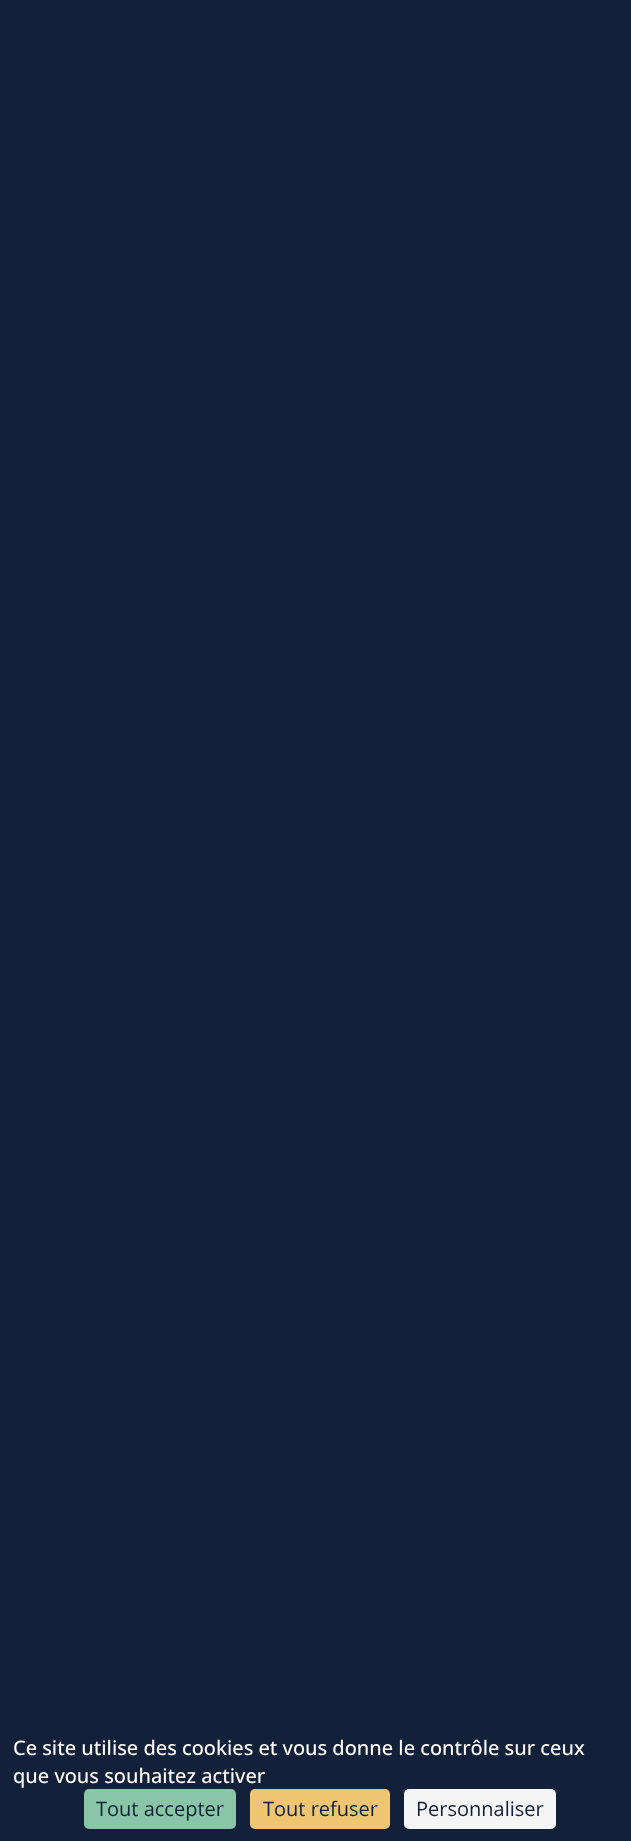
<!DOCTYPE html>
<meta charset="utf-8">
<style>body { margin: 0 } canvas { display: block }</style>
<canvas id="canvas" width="631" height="1841"></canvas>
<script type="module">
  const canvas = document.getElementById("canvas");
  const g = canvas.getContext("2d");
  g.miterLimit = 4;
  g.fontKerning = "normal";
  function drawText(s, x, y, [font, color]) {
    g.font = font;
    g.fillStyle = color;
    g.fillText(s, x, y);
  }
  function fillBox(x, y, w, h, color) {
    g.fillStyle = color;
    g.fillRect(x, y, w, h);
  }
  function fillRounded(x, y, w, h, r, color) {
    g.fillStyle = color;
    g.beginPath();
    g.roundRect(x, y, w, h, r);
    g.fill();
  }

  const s1 = ["500 20px Open Sans", "#FFFFFF"];
  const s2 = ["20px Open Sans", "#122139"];

  fillBox(0, 0, 631, 1841, "#122139");
  drawText("Ce site utilise des cookies et vous donne le contrôle sur ceux", 13, 1755, s1);
  drawText("que vous souhaitez activer", 13, 1783, s1);
  fillRounded(84, 1789, 152, 40, 5, "#89C6A7");
  drawText("Tout accepter", 96, 1816, s2);
  fillRounded(250, 1789, 140, 40, 5, "#EFC571");
  drawText("Tout refuser", 263, 1816, s2);
  fillRounded(404, 1789, 152, 40, 5, "#F5F5F5");
  drawText("Personnaliser", 416, 1816, s2);
</script>
